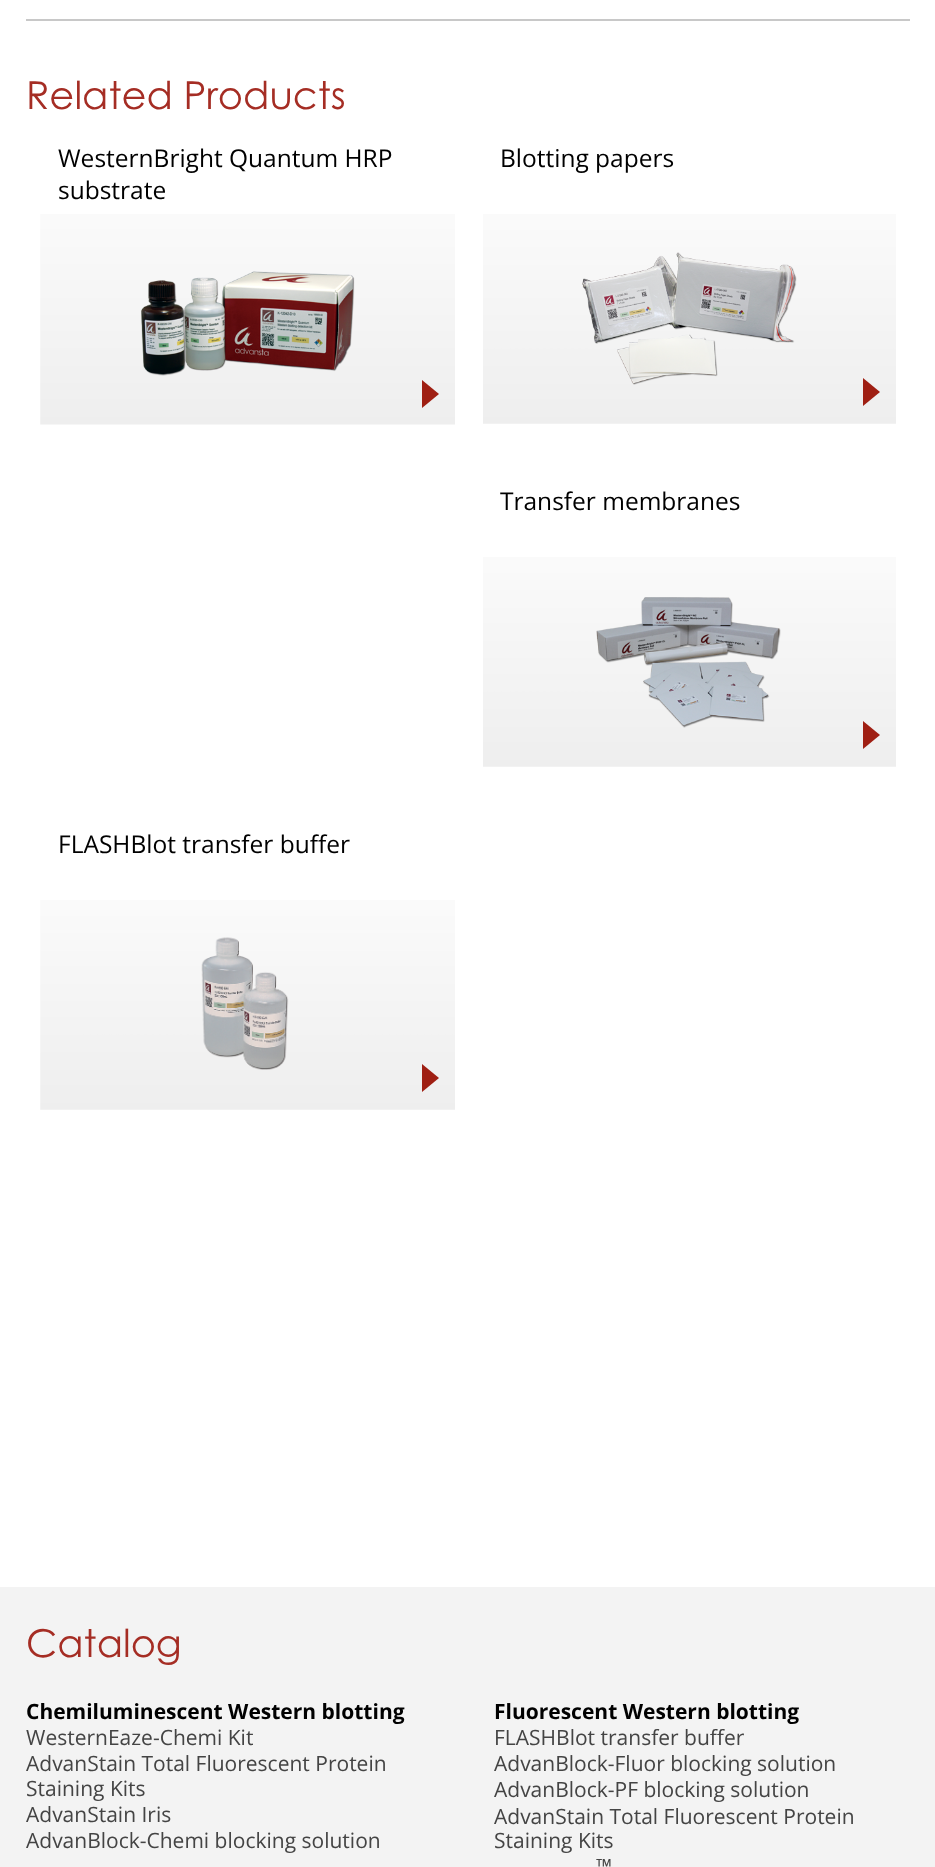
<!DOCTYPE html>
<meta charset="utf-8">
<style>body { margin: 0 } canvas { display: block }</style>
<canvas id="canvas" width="935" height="1867"></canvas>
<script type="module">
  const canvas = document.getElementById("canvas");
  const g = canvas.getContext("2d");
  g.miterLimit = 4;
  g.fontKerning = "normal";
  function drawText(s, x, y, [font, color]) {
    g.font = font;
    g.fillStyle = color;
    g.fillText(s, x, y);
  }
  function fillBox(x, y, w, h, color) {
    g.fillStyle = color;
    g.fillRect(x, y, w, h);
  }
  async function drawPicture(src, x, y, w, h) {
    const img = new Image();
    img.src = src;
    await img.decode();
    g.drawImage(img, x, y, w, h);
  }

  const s1 = ["38.5px Century Gothic", "#A52D24"];
  const s2 = ["24.5px Open Sans", "#000000"];
  const s3 = ["bold 21px Open Sans", "#000000"];
  const s4 = ["21px Open Sans", "#444444"];

  fillBox(0, 0, 935, 1867, "#FFFFFF");
  fillBox(26, 19, 884, 2, "#C8C8C8");
  drawText("Related Products", 26, 109, s1);
  await drawPicture("pic1.png", 40, 214, 415, 211);
  drawText("WesternBright Quantum HRP", 58, 167, s2);
  drawText("substrate", 58, 199, s2);
  await drawPicture("pic2.png", 141, 271, 214, 105);
  g.fillStyle = "#9F1F13";
  g.beginPath();
  g.moveTo(422, 408);
  g.lineTo(422, 380);
  g.lineTo(439, 394);
  g.closePath();
  g.fill();
  await drawPicture("pic3.png", 483, 214, 413, 210);
  drawText("Blotting papers", 500, 167, s2);
  await drawPicture("pic4.png", 582, 252, 215, 133);
  g.fillStyle = "#9F1F13";
  g.beginPath();
  g.moveTo(863, 406);
  g.lineTo(863, 378);
  g.lineTo(880, 392);
  g.closePath();
  g.fill();
  await drawPicture("pic3.png", 483, 557, 413, 210);
  drawText("Transfer membranes", 500, 510, s2);
  await drawPicture("pic5.png", 596, 597, 185, 131);
  g.fillStyle = "#9F1F13";
  g.beginPath();
  g.moveTo(863, 749);
  g.lineTo(863, 721);
  g.lineTo(880, 735);
  g.closePath();
  g.fill();
  await drawPicture("pic6.png", 40, 900, 415, 210);
  drawText("FLASHBlot transfer buffer", 58, 853, s2);
  await drawPicture("pic7.png", 201, 937, 88, 133);
  g.fillStyle = "#9F1F13";
  g.beginPath();
  g.moveTo(422, 1092);
  g.lineTo(422, 1064);
  g.lineTo(439, 1078);
  g.closePath();
  g.fill();
  fillBox(0, 1587, 935, 280, "#F3F3F3");
  drawText("Catalog", 26, 1657, s1);
  drawText("Chemiluminescent Western blotting", 26, 1719, s3);
  drawText("WesternEaze-Chemi Kit", 26, 1745, s4);
  drawText("AdvanStain Total Fluorescent Protein", 26, 1771, s4);
  drawText("Staining Kits", 26, 1796, s4);
  drawText("AdvanStain Iris", 26, 1822, s4);
  drawText("AdvanBlock-Chemi blocking solution", 26, 1848, s4);
  drawText("Fluorescent Western blotting", 494, 1719, s3);
  drawText("FLASHBlot transfer buffer", 494, 1745, s4);
  drawText("AdvanBlock-Fluor blocking solution", 494, 1771, s4);
  drawText("AdvanBlock-PF blocking solution", 494, 1797, s4);
  drawText("AdvanStain Total Fluorescent Protein", 494, 1824, s4);
  drawText("Staining Kits", 494, 1848, s4);
  drawText("™", 596, 1874, s4);
</script>
